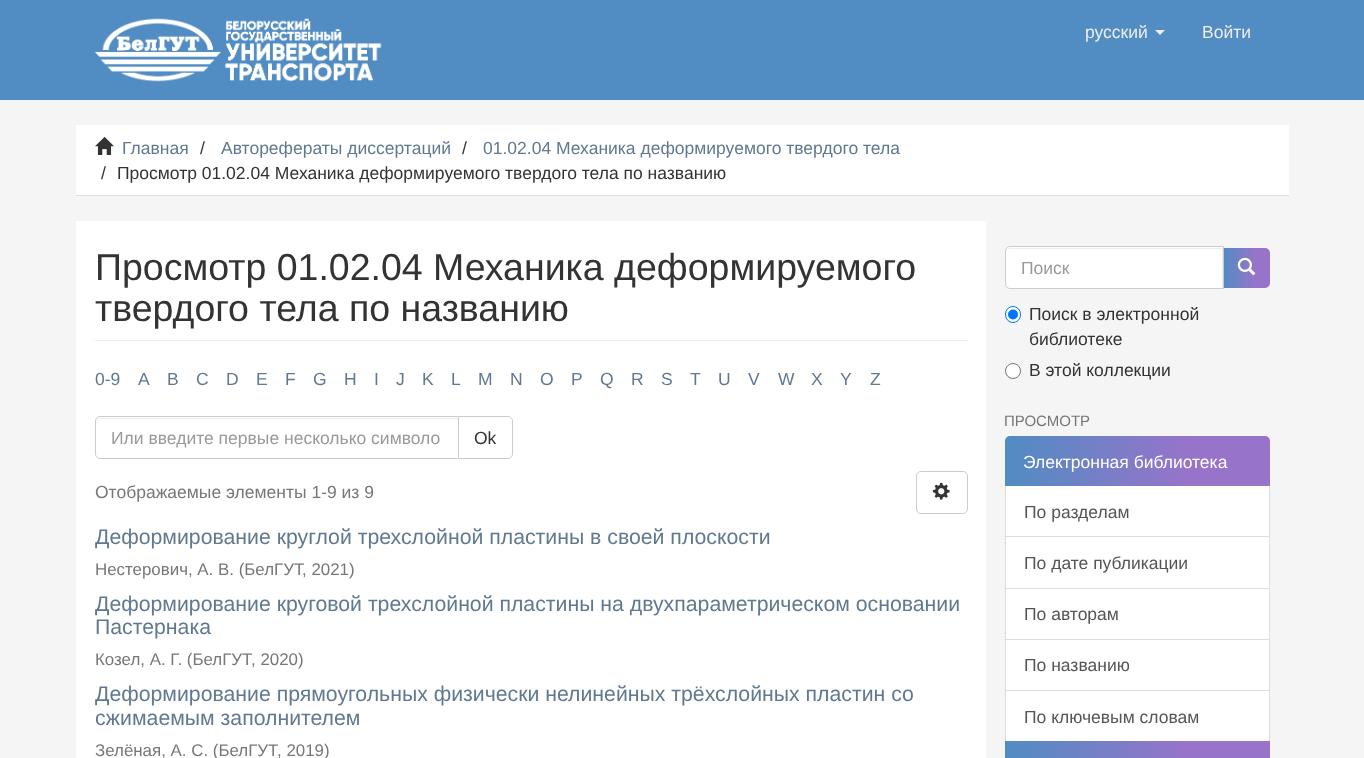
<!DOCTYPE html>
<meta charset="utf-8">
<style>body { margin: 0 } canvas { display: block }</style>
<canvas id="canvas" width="1364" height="758"></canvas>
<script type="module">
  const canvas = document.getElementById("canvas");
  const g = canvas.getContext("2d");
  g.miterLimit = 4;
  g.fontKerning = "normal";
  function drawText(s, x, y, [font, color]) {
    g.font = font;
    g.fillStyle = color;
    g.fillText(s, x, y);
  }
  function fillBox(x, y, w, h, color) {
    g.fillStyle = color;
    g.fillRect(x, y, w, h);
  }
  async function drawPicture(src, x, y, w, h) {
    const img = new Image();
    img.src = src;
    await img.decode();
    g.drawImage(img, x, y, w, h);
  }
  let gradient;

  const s1 = ["17.5px Liberation Sans", "#EEEEEE"];
  const s2 = ["17.5px Liberation Sans", "#607890"];
  const s3 = ["17.5px Liberation Sans", "#333333"];
  const s4 = ["37.5px Liberation Sans", "#333333"];
  const s5 = ["17.5px Liberation Sans", "#999999"];
  const s6 = ["17.5px Liberation Sans", "#777777"];
  const s7 = ["21.25px Liberation Sans", "#607890"];
  const s8 = ["16.9px Liberation Sans", "#777777"];
  const s9 = ["15px Liberation Sans", "#777777"];
  const s10 = ["17.5px Liberation Sans", "#FFFFFF"];
  const s11 = ["17.5px Liberation Sans", "#555555"];

  fillBox(0, 0, 1364, 758, "#F5F5F5");
  fillBox(0, 0, 1364, 100, "#518CC3");
  await drawPicture("pic1.png", 95, 18, 287, 64);
  drawText("русский", 1085, 38, s1);
  g.beginPath();
  g.moveTo(1155, 30);
  g.lineTo(1165, 30);
  g.lineTo(1160, 35);
  g.closePath();
  g.fill();
  drawText("Войти", 1202, 38, s1);
  fillBox(76, 125, 1213, 70, "#FFFFFF");
  fillBox(76, 195, 1213, 1, "#DFDFDF");
  await drawPicture("pic2.png", 95, 136, 19, 19);
  drawText("Главная", 122, 154, s2);
  drawText("/", 200, 154, s3);
  drawText("Авторефераты диссертаций", 221, 154, s2);
  drawText("/", 462, 154, s3);
  drawText("01.02.04 Механика деформируемого твердого тела", 483, 154, s2);
  drawText("/", 101, 179, s3);
  drawText("Просмотр 01.02.04 Механика деформируемого твердого тела по названию", 117, 179, s3);
  fillBox(76, 221, 910, 537, "#FFFFFF");
  fillBox(95, 340, 873, 1, "#EEEEEE");
  drawText("Просмотр 01.02.04 Механика деформируемого", 95, 280, s4);
  drawText("твердого тела по названию", 95, 321, s4);
  drawText("0-9", 95, 385, s2);
  drawText("A", 138, 385, s2);
  drawText("B", 167, 385, s2);
  drawText("C", 196, 385, s2);
  drawText("D", 226, 385, s2);
  drawText("E", 256, 385, s2);
  drawText("F", 285, 385, s2);
  drawText("G", 313, 385, s2);
  drawText("H", 344, 385, s2);
  drawText("I", 374, 385, s2);
  drawText("J", 396, 385, s2);
  drawText("K", 422, 385, s2);
  drawText("L", 451, 385, s2);
  drawText("M", 478, 385, s2);
  drawText("N", 510, 385, s2);
  drawText("O", 540, 385, s2);
  drawText("P", 571, 385, s2);
  drawText("Q", 600, 385, s2);
  drawText("R", 631, 385, s2);
  drawText("S", 661, 385, s2);
  drawText("T", 690, 385, s2);
  drawText("U", 718, 385, s2);
  drawText("V", 748, 385, s2);
  drawText("W", 778, 385, s2);
  drawText("X", 811, 385, s2);
  drawText("Y", 840, 385, s2);
  drawText("Z", 870, 385, s2);
  g.beginPath();
  g.roundRect(458.5, 416.5, 54, 42, [0, 4.5, 4.5, 0]);
  g.strokeStyle = "#CCCCCC";
  g.stroke();
  g.fillStyle = "#FFFFFF";
  g.beginPath();
  g.roundRect(95, 416, 364, 43, [5, 0, 0, 5]);
  g.fill();
  g.fillStyle = "#ECECEC";
  g.beginPath();
  g.moveTo(100, 419);
  g.lineTo(458, 419);
  g.lineTo(458, 418);
  g.lineTo(100, 418);
  g.bezierCurveTo(98, 418, 96, 420, 96, 422);
  g.bezierCurveTo(96, 420, 98, 419, 100, 419);
  g.closePath();
  g.fill();
  g.beginPath();
  g.roundRect(95.5, 416.5, 363, 42, [4.5, 0, 0, 4.5]);
  g.stroke();
  drawText("Или введите первые несколько символо", 111, 444, s5);
  drawText("Ok", 474, 444, s3);
  drawText("Отображаемые элементы 1-9 из 9", 95, 498, s6);
  g.beginPath();
  g.roundRect(916.5, 471.5, 51, 42, 4.5);
  g.stroke();
  await drawPicture("pic3.png", 932, 482, 18, 18);
  drawText("Деформирование круглой трехслойной пластины в своей плоскости", 95, 544, s7);
  drawText("Нестерович, А. В. (БелГУТ", 95, 575, s8);
  drawText(", 2021)", 302, 575, s8);
  drawText("Деформирование круговой трехслойной пластины на двухпараметрическом основании", 95, 611, s7);
  drawText("Пастернака", 95, 634, s7);
  drawText("Козел, А. Г. (БелГУТ", 95, 665, s8);
  drawText(", 2020)", 251, 665, s8);
  drawText("Деформирование прямоугольных физически нелинейных трёхслойных пластин со", 95, 701, s7);
  drawText("сжимаемым заполнителем", 95, 725, s7);
  drawText("Зелёная, А. С. (БелГУТ", 95, 756, s8);
  drawText(", 2019)", 277, 756, s8);
  gradient = g.createLinearGradient(1223, 268, 1270, 268);
  gradient.addColorStop(0, "#518CC3");
  gradient.addColorStop(0.7, "#9873CA");
  g.fillStyle = gradient;
  g.beginPath();
  g.roundRect(1223, 248, 47, 40, [0, 5, 5, 0]);
  g.fill();
  g.fillStyle = "#FFFFFF";
  g.beginPath();
  g.roundRect(1005, 246, 219, 43, [5, 0, 0, 5]);
  g.fill();
  g.fillStyle = "#ECECEC";
  g.beginPath();
  g.moveTo(1010, 249);
  g.lineTo(1222, 249);
  g.lineTo(1222, 288);
  g.lineTo(1223, 288);
  g.lineTo(1223, 248);
  g.lineTo(1010, 248);
  g.bezierCurveTo(1008, 248, 1006, 250, 1006, 252);
  g.bezierCurveTo(1006, 250, 1008, 249, 1010, 249);
  g.closePath();
  g.fill();
  g.beginPath();
  g.roundRect(1005.5, 246.5, 218, 42, [4.5, 0, 0, 4.5]);
  g.stroke();
  drawText("Поиск", 1021, 274, s5);
  await drawPicture("pic4.png", 1237, 257, 19, 19);
  g.fillStyle = "#FFFFFF";
  g.beginPath();
  g.roundRect(1005.5, 306.5, 15, 16, 7.5);
  g.fill();
  g.strokeStyle = "#0075FF";
  g.stroke();
  g.fillStyle = "#0075FF";
  g.beginPath();
  g.arc(1013, 314.5, 5, 0, Math.PI * 2);
  g.fill();
  drawText("Поиск в электронной", 1029, 320, s3);
  drawText("библиотеке", 1029, 345, s3);
  g.fillStyle = "#FFFFFF";
  g.beginPath();
  g.arc(1013, 371, 7.5, 0, Math.PI * 2);
  g.fill();
  g.strokeStyle = "#767676";
  g.stroke();
  drawText("В этой коллекции", 1029, 376, s3);
  drawText("ПРОСМОТР", 1004, 426, s9);
  fillBox(1006, 486, 263, 50, "#FFFFFF");
  g.strokeStyle = "#DDDDDD";
  g.strokeRect(1005.5, 485.5, 264, 52);
  gradient = g.createLinearGradient(1005, 461, 1270, 461);
  gradient.addColorStop(0, "#518CC3");
  gradient.addColorStop(0.7, "#9873CA");
  g.fillStyle = gradient;
  g.beginPath();
  g.roundRect(1005, 436, 265, 50, [5, 5, 0, 0]);
  g.fill();
  drawText("Электронная библиотека", 1023, 468, s10);
  drawText("По разделам", 1024, 518, s11);
  g.fillStyle = "#FFFFFF";
  g.beginPath();
  g.rect(1005.5, 536.5, 264, 52);
  g.fill();
  g.stroke();
  drawText("По дате публикации", 1024, 569, s11);
  g.fillStyle = "#FFFFFF";
  g.beginPath();
  g.rect(1005.5, 588.5, 264, 51);
  g.fill();
  g.stroke();
  drawText("По авторам", 1024, 620, s11);
  g.fillStyle = "#FFFFFF";
  g.beginPath();
  g.rect(1005.5, 639.5, 264, 51);
  g.fill();
  g.stroke();
  drawText("По названию", 1024, 671, s11);
  fillBox(1006, 691, 263, 50, "#FFFFFF");
  g.strokeRect(1005.5, 690.5, 264, 52);
  drawText("По ключевым словам", 1024, 723, s11);
  gradient = g.createLinearGradient(1005, 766, 1270, 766);
  gradient.addColorStop(0, "#518CC3");
  gradient.addColorStop(0.7, "#9873CA");
  g.fillStyle = gradient;
  g.fillRect(1005, 741, 265, 17);
</script>
